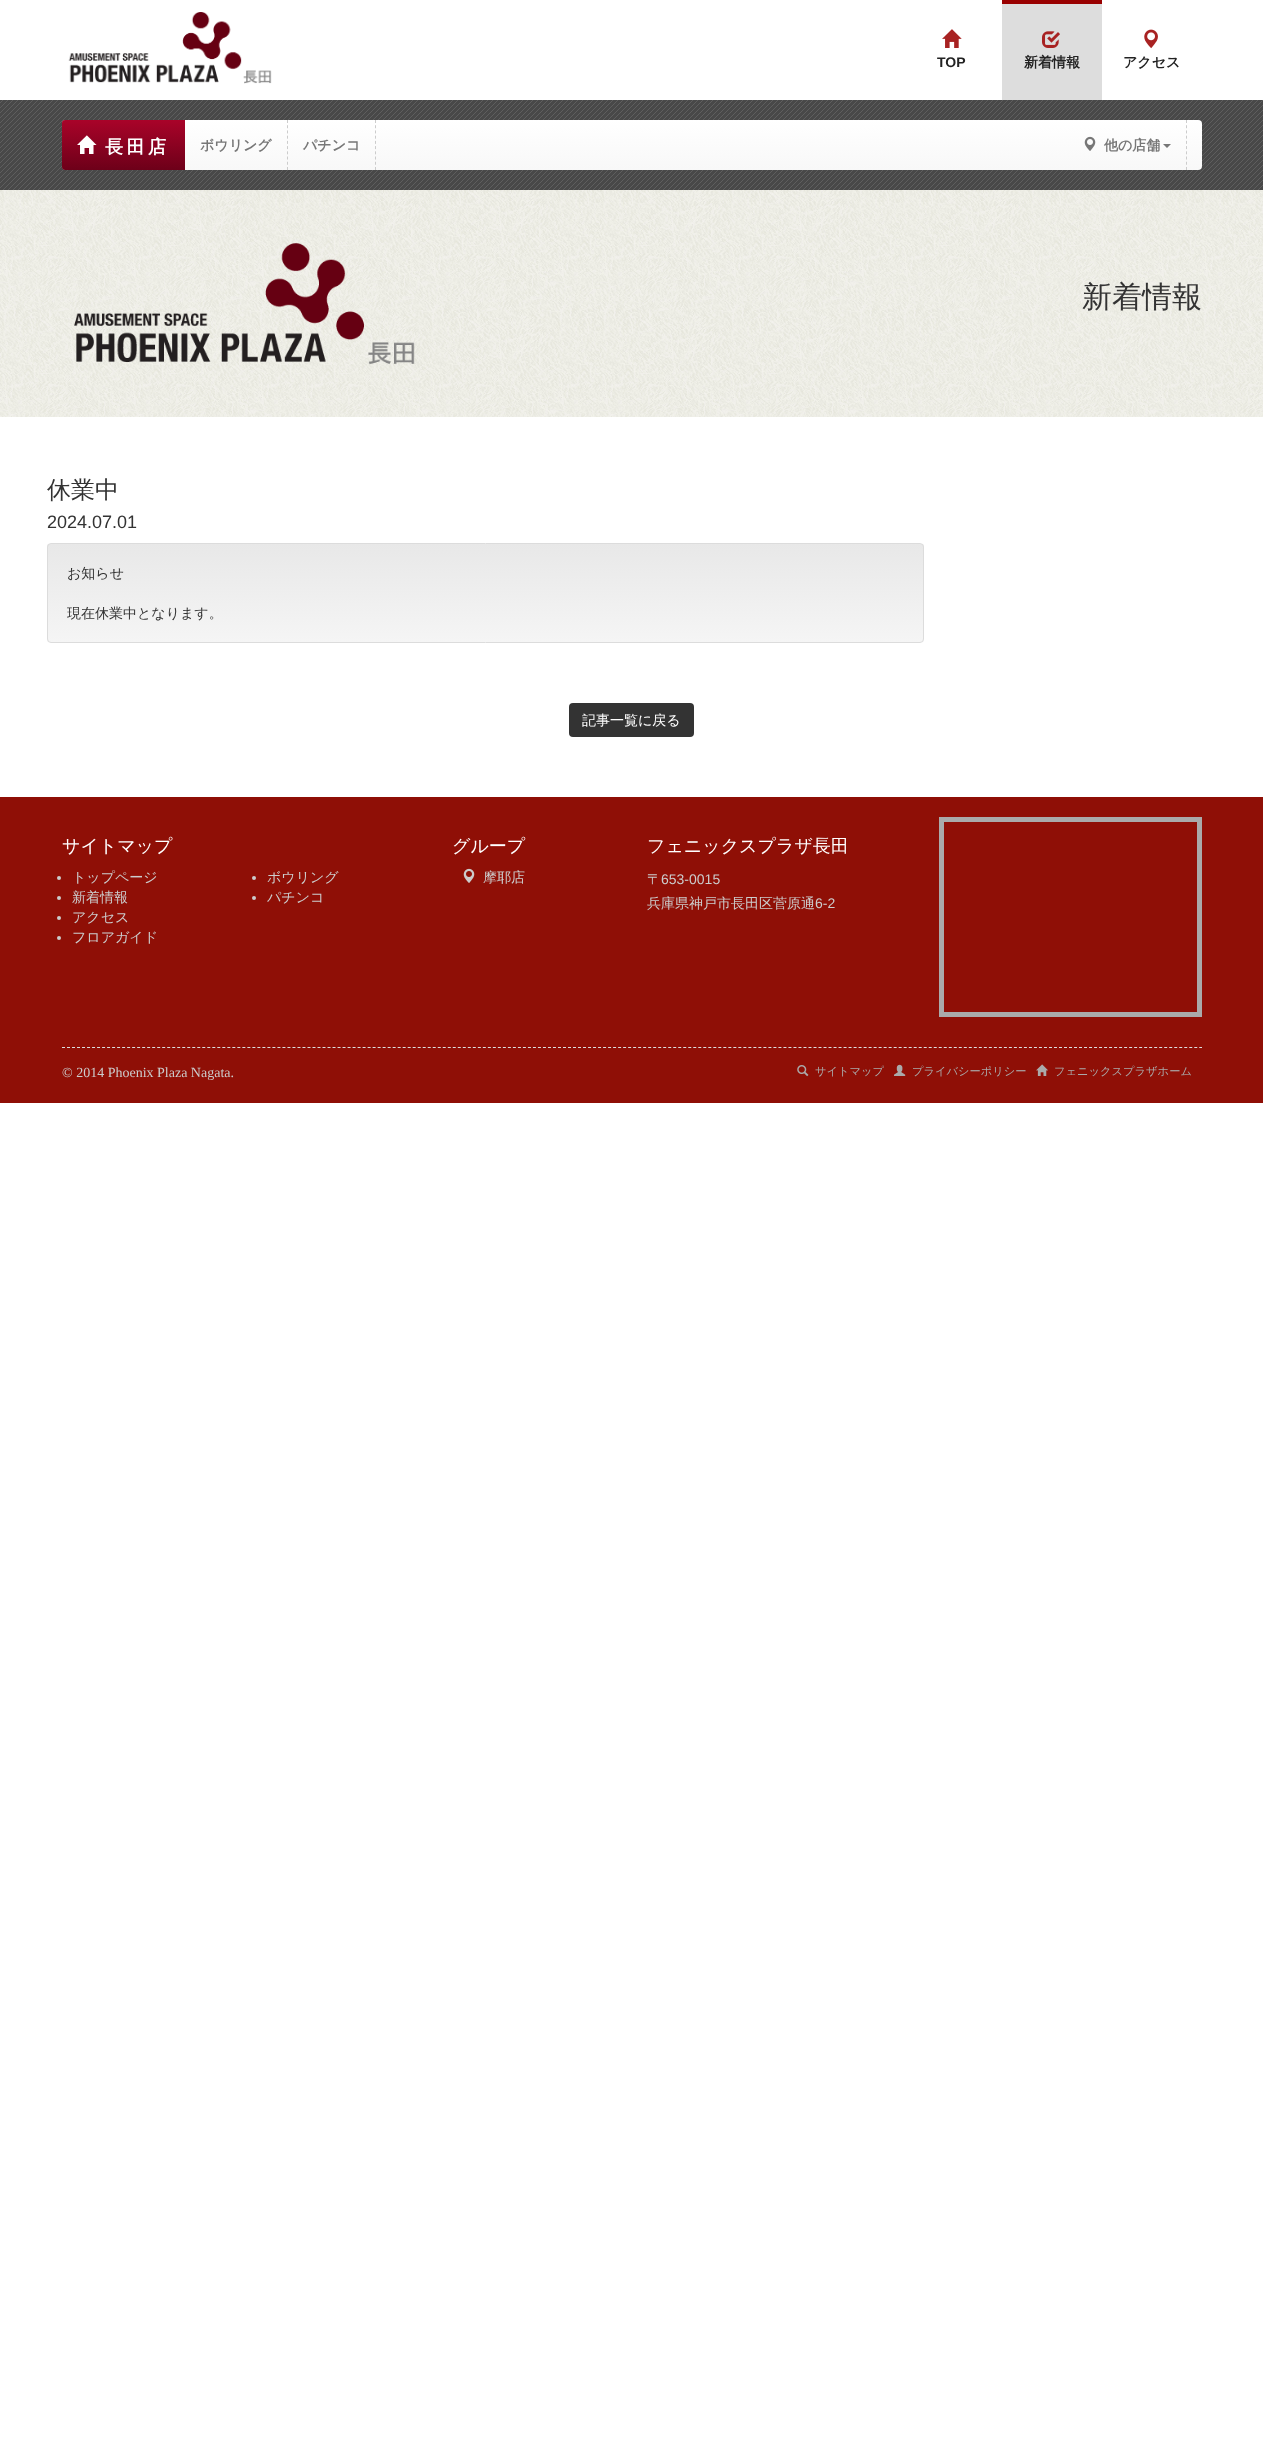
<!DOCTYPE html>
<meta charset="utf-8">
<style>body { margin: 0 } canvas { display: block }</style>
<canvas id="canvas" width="1263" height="2448"></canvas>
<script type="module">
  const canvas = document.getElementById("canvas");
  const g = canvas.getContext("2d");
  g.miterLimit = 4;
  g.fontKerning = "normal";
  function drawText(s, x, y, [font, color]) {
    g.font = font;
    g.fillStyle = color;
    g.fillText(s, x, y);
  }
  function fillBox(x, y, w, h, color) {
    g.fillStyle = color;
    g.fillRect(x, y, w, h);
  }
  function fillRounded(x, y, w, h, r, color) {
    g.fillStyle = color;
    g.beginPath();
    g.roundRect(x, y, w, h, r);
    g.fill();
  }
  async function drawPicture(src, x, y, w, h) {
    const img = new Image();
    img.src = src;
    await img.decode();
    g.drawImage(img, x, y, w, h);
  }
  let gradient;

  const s1 = ["bold 14px Liberation Sans", "#222222"];
  const s2 = ["bold 14px WenQuanYi Zen Hei", "#222222"];
  const s3 = ["bold 18px WenQuanYi Zen Hei", "#FFFFFF"];
  const s4 = ["bold 14px WenQuanYi Zen Hei", "#777777"];
  const s5 = ["500 30px WenQuanYi Zen Hei", "#333333"];
  const s6 = ["500 24px WenQuanYi Zen Hei", "#333333"];
  const s7 = ["18px Liberation Sans", "#333333"];
  const s8 = ["500 14px WenQuanYi Zen Hei", "#333333"];
  const s9 = ["500 14px WenQuanYi Zen Hei", "#FFFFFF"];
  const s10 = ["500 18px WenQuanYi Zen Hei", "#FFFFFF"];
  const s11 = ["500 14px WenQuanYi Zen Hei", "#CCCCCC"];
  const s12 = ["14px Liberation Sans", "#CCCCCC"];
  const s13 = ["14px Liberation Serif", "#CCCCCC"];
  const s14 = ["500 11.25px WenQuanYi Zen Hei", "#AAAAAA"];

  fillBox(0, 0, 1263, 2448, "#FFFFFF");
  await drawPicture("pic1.png", 68, 12, 204, 72);
  await drawPicture("pic2.png", 942, 29, 20, 19);
  drawText("TOP", 937, 67, s1);
  fillBox(1002, 4, 100, 96, "#DDDDDD");
  fillBox(1002, 0, 100, 4, "#990000");
  await drawPicture("pic3.png", 1042, 31, 18, 17);
  drawText("新着情報", 1024, 67, s2);
  await drawPicture("pic4.png", 1144, 29, 14, 20);
  drawText("アクセス", 1123, 67, s2);
  await drawPicture("pic5.png", 0, 100, 1263, 90);
  gradient = g.createLinearGradient(632, 120, 632, 170);
  gradient.addColorStop(0, "#FFFFFF");
  gradient.addColorStop(1, "#F8F8F8");
  g.fillStyle = gradient;
  g.beginPath();
  g.roundRect(62, 120, 1140, 50, 4);
  g.fill();
  g.fillStyle = "rgba(255, 255, 255, 0.15)";
  g.beginPath();
  g.moveTo(66, 121);
  g.lineTo(1198, 121);
  g.bezierCurveTo(1200, 121, 1202, 123, 1202, 125);
  g.bezierCurveTo(1202, 122, 1201, 120, 1198, 120);
  g.lineTo(66, 120);
  g.bezierCurveTo(63, 120, 62, 122, 62, 125);
  g.bezierCurveTo(62, 123, 64, 121, 66, 121);
  g.closePath();
  g.fill();
  gradient = g.createLinearGradient(124, 120, 124, 170);
  gradient.addColorStop(0, "#A90329");
  gradient.addColorStop(0.44, "#8F0222");
  gradient.addColorStop(1, "#6D0019");
  g.fillStyle = gradient;
  g.beginPath();
  g.roundRect(62, 120, 123, 50, [3, 0, 0, 3]);
  g.fill();
  await drawPicture("pic6.png", 77, 135, 20, 19);
  g.letterSpacing = "3.5px";
  drawText("長田店", 105, 153, s3);
  g.beginPath();
  g.moveTo(287.5, 120);
  g.lineTo(287.5, 170);
  g.strokeStyle = "#CCCCCC";
  g.setLineDash([3, 2.22]);
  g.stroke();
  g.letterSpacing = "0px";
  drawText("ボウリング", 200, 150, s4);
  g.beginPath();
  g.moveTo(375.5, 120);
  g.lineTo(375.5, 170);
  g.stroke();
  drawText("パチンコ", 303, 150, s4);
  g.beginPath();
  g.moveTo(1186.5, 120);
  g.lineTo(1186.5, 170);
  g.stroke();
  await drawPicture("pic7.png", 1084, 136, 12, 15);
  drawText("他の店舗", 1104, 150, s4);
  g.beginPath();
  g.moveTo(1163, 144);
  g.lineTo(1171, 144);
  g.lineTo(1167, 148);
  g.closePath();
  g.fill();
  await drawPicture("pic8.png", 0, 190, 1263, 227);
  await drawPicture("pic9.png", 74, 243, 341, 122);
  drawText("新着情報", 1082, 307, s5);
  drawText("休業中", 47, 498, s6);
  drawText("2024.07.01", 47, 528, s7);
  g.save();
  g.beginPath();
  g.roundRect(47, 543, 877, 100, 4);
  g.clip();
  gradient = g.createLinearGradient(486, 544, 486, 642);
  gradient.addColorStop(0, "#E8E8E8");
  gradient.addColorStop(1, "#F5F5F5");
  g.fillStyle = gradient;
  g.fillRect(47, 544, 877, 98);
  g.restore();
  g.beginPath();
  g.roundRect(47.5, 543.5, 876, 99, 3.5);
  g.strokeStyle = "#DCDCDC";
  g.setLineDash([]);
  g.stroke();
  drawText("お知らせ", 67, 578, s8);
  drawText("現在休業中となります。", 67, 618, s8);
  fillRounded(569, 703, 125, 34, 4, "#333333");
  drawText("記事一覧に戻る", 582, 725, s9);
  fillBox(0, 797, 1263, 306, "#8F0F06");
  drawText("サイトマップ", 62, 852, s10);
  g.fillStyle = "#CCCCCC";
  g.beginPath();
  g.arc(59, 878, 2, 0, Math.PI * 2);
  g.fill();
  drawText("トップページ", 72, 882, s11);
  g.beginPath();
  g.arc(59, 898, 2, 0, Math.PI * 2);
  g.fill();
  drawText("新着情報", 72, 902, s11);
  g.beginPath();
  g.arc(59, 918, 2, 0, Math.PI * 2);
  g.fill();
  drawText("アクセス", 72, 922, s11);
  g.beginPath();
  g.arc(59, 938, 2, 0, Math.PI * 2);
  g.fill();
  drawText("フロアガイド", 72, 942, s11);
  g.beginPath();
  g.arc(254, 878, 2, 0, Math.PI * 2);
  g.fill();
  drawText("ボウリング", 267, 882, s11);
  g.beginPath();
  g.arc(254, 898, 2, 0, Math.PI * 2);
  g.fill();
  drawText("パチンコ", 267, 902, s11);
  drawText("グループ", 452, 852, s10);
  await drawPicture("pic10.png", 463, 868, 12, 15);
  drawText("摩耶店", 483, 882, s11);
  drawText("フェニックスプラザ長田", 647, 852, s10);
  drawText("〒", 647, 884, s11);
  drawText("653-0015", 661, 884, s12);
  drawText("兵庫県神戸市長田区菅原通", 647, 908, s11);
  drawText("6-2", 815, 908, s12);
  g.strokeStyle = "#AAAAAA";
  g.lineWidth = 5;
  g.strokeRect(941.5, 819.5, 258, 195);
  g.beginPath();
  g.moveTo(62, 1047.5);
  g.lineTo(1202, 1047.5);
  g.strokeStyle = "#DDDDDD";
  g.lineWidth = 1;
  g.setLineDash([3, 2.01]);
  g.stroke();
  drawText("© 2014 Phoenix Plaza Nagata.", 62, 1077, s13);
  await drawPicture("pic11.png", 797, 1065, 12, 12);
  drawText("サイトマップ", 815, 1075, s14);
  await drawPicture("pic12.png", 894, 1064, 12, 12);
  drawText("プライバシーポリシー", 912, 1075, s14);
  await drawPicture("pic13.png", 1036, 1064, 12, 12);
  drawText("フェニックスプラザホーム", 1054, 1075, s14);
</script>
